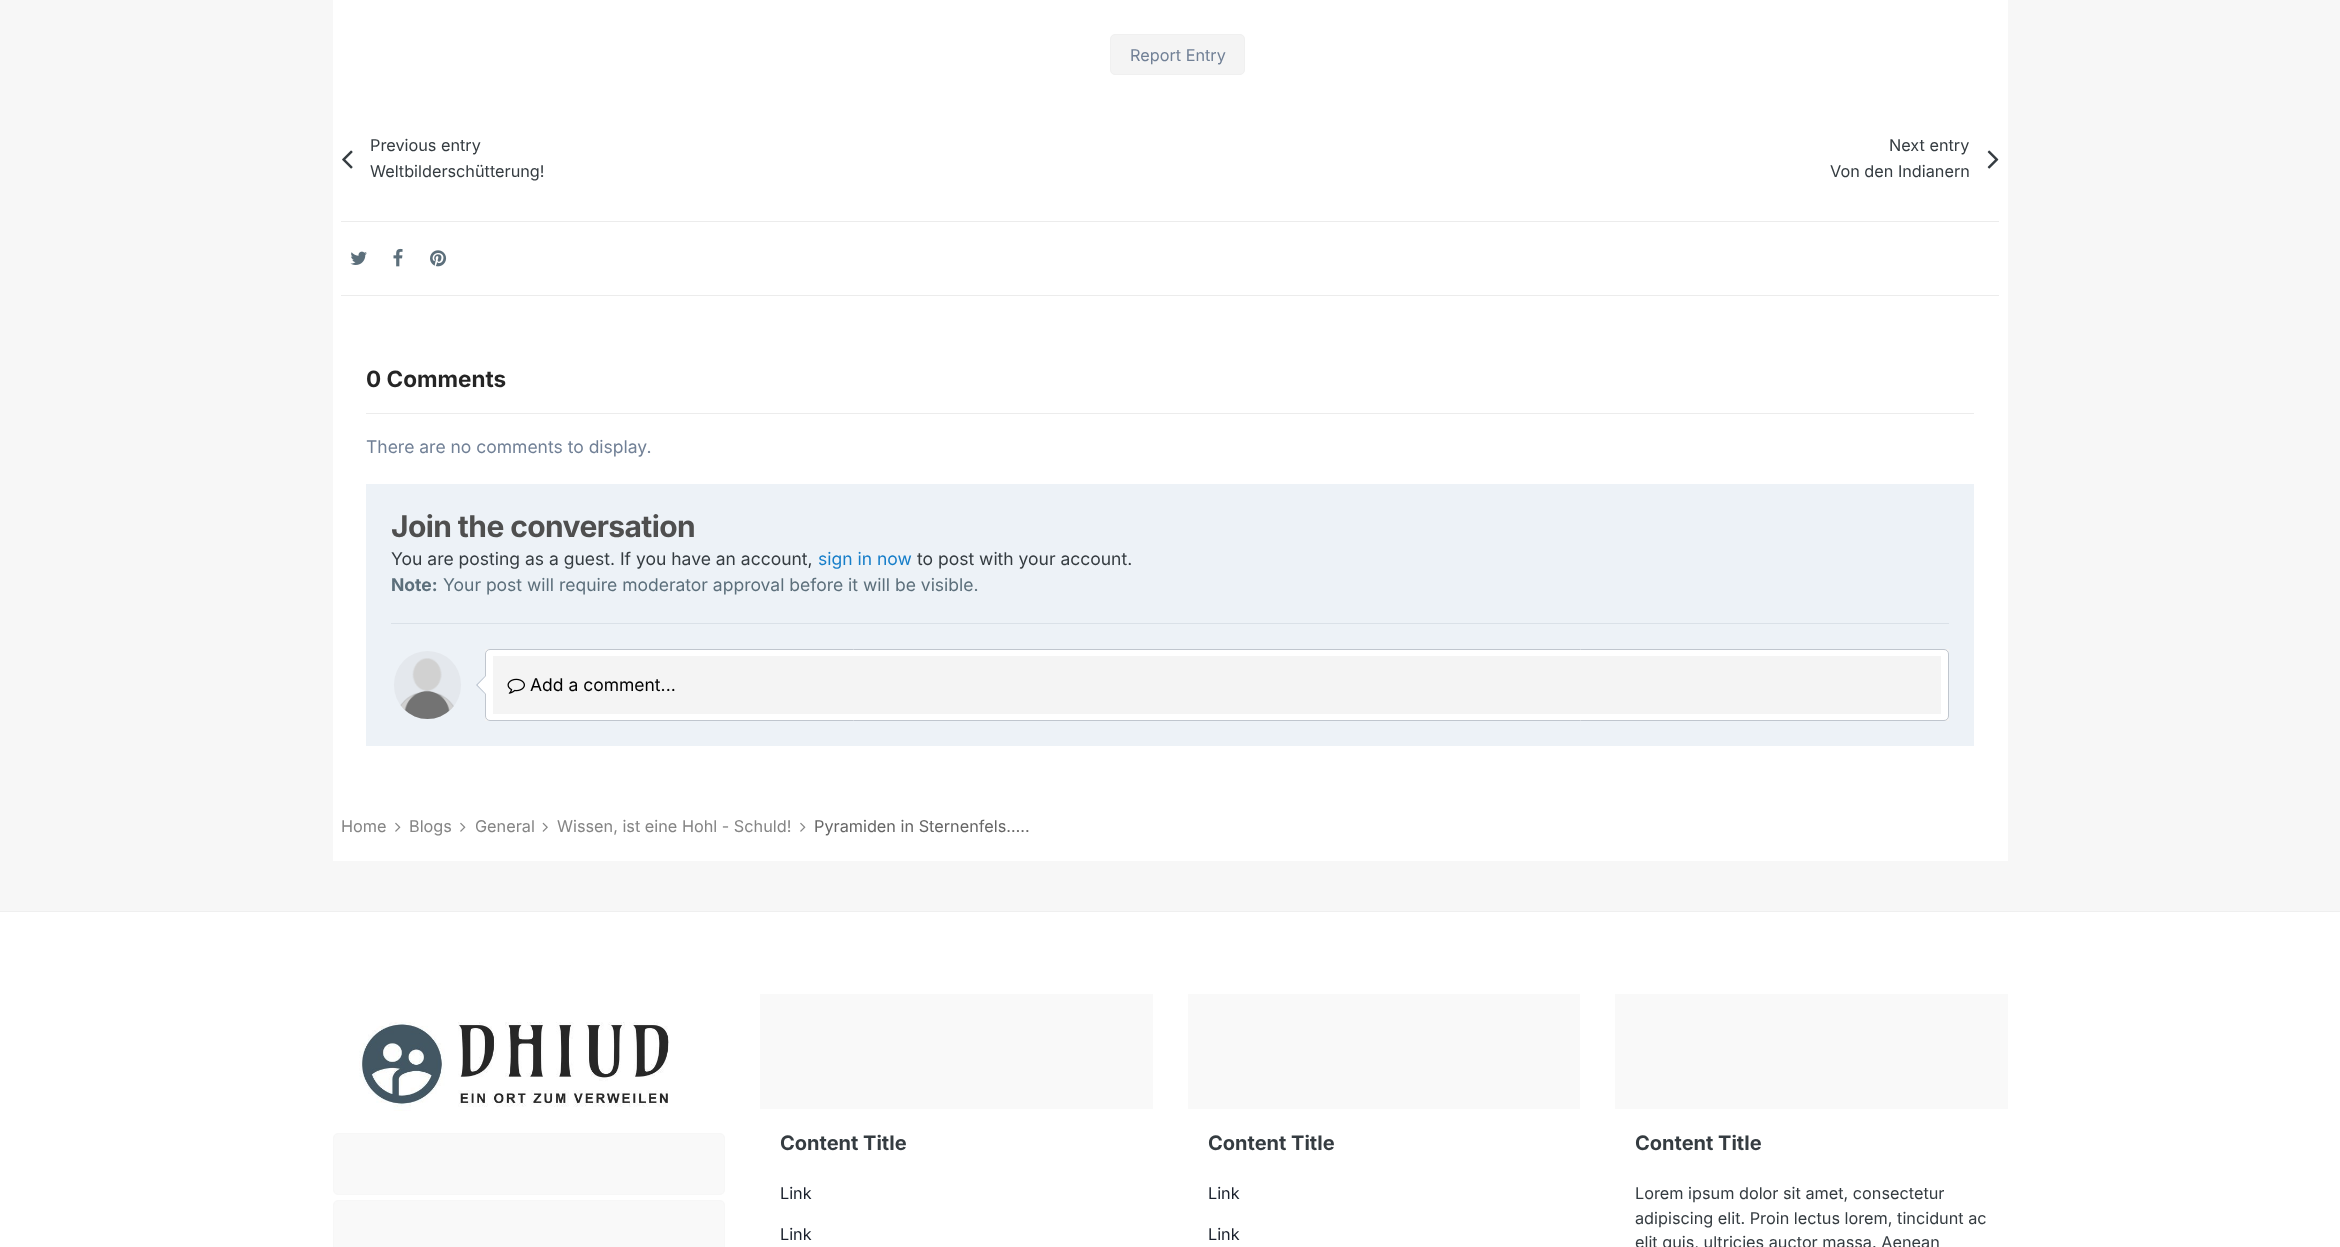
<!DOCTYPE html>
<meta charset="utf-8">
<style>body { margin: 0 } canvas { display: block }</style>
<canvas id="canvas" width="2340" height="1247"></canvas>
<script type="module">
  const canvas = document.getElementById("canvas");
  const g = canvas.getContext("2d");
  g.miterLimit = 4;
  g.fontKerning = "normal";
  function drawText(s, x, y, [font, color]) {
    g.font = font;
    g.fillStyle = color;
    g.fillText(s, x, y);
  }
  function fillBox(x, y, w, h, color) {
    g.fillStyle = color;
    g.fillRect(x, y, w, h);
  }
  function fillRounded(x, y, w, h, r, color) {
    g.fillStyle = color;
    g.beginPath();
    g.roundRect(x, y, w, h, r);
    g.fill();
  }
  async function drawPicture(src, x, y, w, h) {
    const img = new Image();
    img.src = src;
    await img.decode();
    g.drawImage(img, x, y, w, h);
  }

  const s1 = ["16.25px Inter", "#718096"];
  const s2 = ["16.25px Inter", "#353C41"];
  const s3 = ["bold 22.5px Inter", "#252525"];
  const s4 = ["17.5px Inter", "#718096"];
  const s5 = ["bold 30px Inter", "#4F4F4F"];
  const s6 = ["17.5px Inter", "#353C41"];
  const s7 = ["17.5px Inter", "#177EC9"];
  const s8 = ["bold 17.5px Inter", "#5C6F7B"];
  const s9 = ["17.5px Inter", "#5C6F7B"];
  const s10 = ["17.5px Inter", "#000000"];
  const s11 = ["16.25px Inter", "#858585"];
  const s12 = ["16.25px Inter", "#666666"];
  const s13 = ["bold 20px Inter", "#353C41"];
  const s14 = ["16.25px Inter", "#1A202C"];

  fillBox(0, 0, 2340, 1247, "#F7F7F7");
  fillBox(333, 0, 1675, 861, "#FFFFFF");
  g.fillStyle = "#F4F4F4";
  g.beginPath();
  g.roundRect(1110.5, 34.5, 134, 40, 4.5);
  g.fill();
  g.strokeStyle = "#F0F0F0";
  g.stroke();
  drawText("Report Entry", 1130, 61, s1);
  drawText("Previous entry", 370, 151, s2);
  await drawPicture("pic1.png", 342, 150, 11, 19);
  drawText("Weltbilderschütterung!", 370, 177, s2);
  drawText("Next entry", 1889, 151, s2);
  await drawPicture("pic2.png", 1987, 150, 12, 19);
  drawText("Von den Indianern", 1830, 177, s2);
  fillBox(341, 221, 1658, 1, "#ECECEC");
  await drawPicture("pic3.png", 350, 251, 17, 14);
  await drawPicture("pic4.png", 393, 248, 10, 19);
  await drawPicture("pic5.png", 430, 250, 17, 17);
  fillBox(341, 295, 1658, 1, "#ECECEC");
  drawText("0 Comments", 366, 387, s3);
  fillBox(366, 413, 1608, 1, "#ECECEC");
  drawText("There are no comments to display.", 366, 453, s4);
  fillBox(366, 484, 1608, 262, "#EDF2F7");
  fillBox(391, 623, 1558, 1, "#DAE1E8");
  g.letterSpacing = "-0.6px";
  drawText("Join the conversation", 391, 537, s5);
  g.letterSpacing = "0px";
  drawText("You are posting as a guest. If you have an account,", 391, 565, s6);
  drawText("sign in now", 818, 565, s7);
  drawText("to post with your account.", 917, 565, s6);
  drawText("Note:", 391, 591, s8);
  drawText("Your post will require moderator approval before it will be visible.", 443, 591, s9);
  fillRounded(394, 651, 67, 68, 33.5, "#E4E8ED");
  await drawPicture("pic6.png", 400, 658, 54, 61);
  fillBox(485, 649, 1464, 72, "#F4F4F4");
  g.fillStyle = "#FFFFFF";
  g.beginPath();
  g.roundRect(485.5, 649.5, 1463, 71, 4.5);
  g.fill();
  g.strokeStyle = "#C0C6CE";
  g.stroke();
  g.fillStyle = "#BBC4D0";
  g.beginPath();
  g.moveTo(485, 676);
  g.lineTo(485, 694);
  g.lineTo(476, 685);
  g.closePath();
  g.fill();
  g.fillStyle = "#FFFFFF";
  g.beginPath();
  g.moveTo(486, 676);
  g.lineTo(486, 694);
  g.lineTo(477.5, 685);
  g.closePath();
  g.fill();
  fillBox(493, 656, 1448, 58, "#F4F4F4");
  await drawPicture("pic7.png", 507, 678, 18, 16);
  drawText("Add a comment...", 530, 691, s10);
  drawText("Home", 341, 832, s11);
  await drawPicture("pic8.png", 395, 822, 6, 10);
  drawText("Blogs", 409, 832, s11);
  await drawPicture("pic8.png", 460, 822, 6, 10);
  drawText("General", 475, 832, s11);
  await drawPicture("pic9.png", 542, 822, 6, 10);
  drawText("Wissen, ist eine Hohl - Schuld!", 557, 832, s11);
  await drawPicture("pic8.png", 800, 822, 6, 10);
  drawText("Pyramiden in Sternenfels…..", 814, 832, s12);
  fillBox(0, 912, 2340, 335, "#FFFFFF");
  fillBox(0, 911, 2340, 1, "#EFEFEF");
  await drawPicture("pic10.png", 359, 1022, 311, 89);
  g.fillStyle = "#F9F9F9";
  g.beginPath();
  g.roundRect(333.5, 1133.5, 391, 61, 4.5);
  g.fill();
  g.strokeStyle = "#F7F7F7";
  g.stroke();
  g.beginPath();
  g.roundRect(333.5, 1200.5, 391, 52, 4.5);
  g.fill();
  g.stroke();
  fillBox(760, 994, 393, 115, "#F9F9F9");
  drawText("Content Title", 780, 1150, s13);
  drawText("Link", 780, 1199, s14);
  drawText("Link", 780, 1240, s14);
  fillBox(1188, 994, 392, 115, "#F9F9F9");
  drawText("Content Title", 1208, 1150, s13);
  drawText("Link", 1208, 1199, s14);
  drawText("Link", 1208, 1240, s14);
  fillBox(1615, 994, 393, 115, "#F9F9F9");
  drawText("Content Title", 1635, 1150, s13);
  drawText("Lorem ipsum dolor sit amet, consectetur", 1635, 1199, s2);
  drawText("adipiscing elit. Proin lectus lorem, tincidunt ac", 1635, 1224, s2);
  drawText("elit quis, ultricies auctor massa. Aenean", 1635, 1248, s2);
</script>
